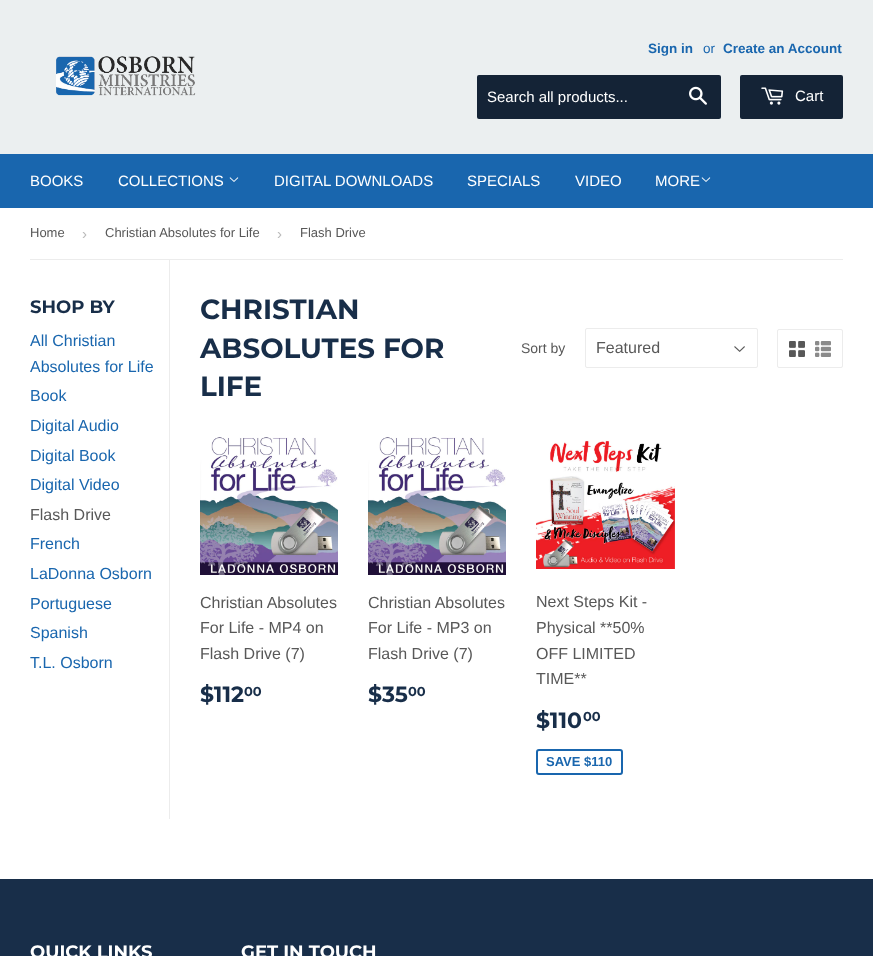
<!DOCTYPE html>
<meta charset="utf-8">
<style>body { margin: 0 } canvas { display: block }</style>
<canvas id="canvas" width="873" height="956"></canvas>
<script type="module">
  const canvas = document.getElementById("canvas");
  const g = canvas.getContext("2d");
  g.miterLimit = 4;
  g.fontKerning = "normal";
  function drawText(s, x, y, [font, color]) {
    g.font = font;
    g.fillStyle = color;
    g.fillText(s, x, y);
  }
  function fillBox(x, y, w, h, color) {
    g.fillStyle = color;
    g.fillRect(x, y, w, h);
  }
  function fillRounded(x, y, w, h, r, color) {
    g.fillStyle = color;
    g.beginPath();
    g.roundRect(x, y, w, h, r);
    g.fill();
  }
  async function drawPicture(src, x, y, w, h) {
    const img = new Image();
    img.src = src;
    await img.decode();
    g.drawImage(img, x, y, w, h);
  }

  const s1 = ["bold 13.5px Liberation Sans", "#1966AE"];
  const s2 = ["13.5px Liberation Sans", "#1966AE"];
  const s3 = ["15px Liberation Sans", "#FFFFFF"];
  const s4 = ["13px Liberation Sans", "#585858"];
  const s5 = ["15px Liberation Sans", "#BBBBBB"];
  const s6 = ["100 18px Montserrat", "#182E49"];
  const s7 = ["16px Liberation Sans", "#1966AE"];
  const s8 = ["16px Liberation Sans", "#585858"];
  const s9 = ["100 27.75px Montserrat", "#182E49"];
  const s10 = ["14px Liberation Sans", "#585858"];
  const s11 = ["100 22px Montserrat", "#182E49"];
  const s12 = ["100 13px Montserrat", "#182E49"];
  const s13 = ["bold 13px Liberation Sans", "#1966AE"];
  const s14 = ["100 18px Montserrat", "#FFFFFF"];

  fillBox(0, 0, 873, 956, "#FFFFFF");
  fillBox(0, 0, 873, 154, "#EBEFF0");
  await drawPicture("pic1.png", 56, 56, 140, 40);
  drawText("Sign in", 648, 53, s1);
  drawText("or", 703, 53, s2);
  drawText("Create an Account", 723, 53, s1);
  fillRounded(477, 75, 244, 44, 2, "#142336");
  drawText("Search all products...", 487, 102, s3);
  await drawPicture("pic2.png", 689, 86, 18, 19);
  fillRounded(740, 75, 103, 44, 2, "#142336");
  await drawPicture("pic3.png", 761, 87, 23, 18);
  drawText("Cart", 795, 101, s3);
  fillBox(0, 154, 873, 54, "#1966AE");
  drawText("BOOKS", 30, 186, s3);
  drawText("COLLECTIONS", 118, 186, s3);
  await drawPicture("pic4.png", 229, 177, 10, 5);
  drawText("DIGITAL DOWNLOADS", 274, 186, s3);
  drawText("SPECIALS", 467, 186, s3);
  drawText("VIDEO", 575, 186, s3);
  drawText("MORE", 655, 186, s3);
  await drawPicture("pic4.png", 701, 177, 10, 5);
  fillBox(30, 259, 813, 1, "#ECECEC");
  drawText("Home", 30, 237, s4);
  drawText("›", 82, 239, s5);
  drawText("Christian Absolutes for Life", 105, 237, s4);
  drawText("›", 277, 239, s5);
  drawText("Flash Drive", 300, 237, s4);
  drawText("SHOP BY", 30, 313, s6);
  drawText("All Christian", 30, 346, s7);
  drawText("Absolutes for Life", 30, 372, s7);
  drawText("Book", 30, 401, s7);
  drawText("Digital Audio", 30, 431, s7);
  drawText("Digital Book", 30, 461, s7);
  drawText("Digital Video", 30, 490, s7);
  drawText("Flash Drive", 30, 520, s8);
  drawText("French", 30, 549, s7);
  drawText("LaDonna Osborn", 30, 579, s7);
  drawText("Portuguese", 30, 609, s7);
  drawText("Spanish", 30, 638, s7);
  drawText("T.L. Osborn", 30, 668, s7);
  fillBox(169, 260, 1, 559, "#ECECEC");
  drawText("CHRISTIAN", 200, 319, s9);
  drawText("ABSOLUTES FOR", 200, 358, s9);
  drawText("LIFE", 200, 396, s9);
  drawText("Sort by", 521, 353, s10);
  await drawPicture("pic5.png", 734, 346, 11, 6);
  g.beginPath();
  g.roundRect(585.5, 328.5, 172, 39, 1.5);
  g.strokeStyle = "#ECECEC";
  g.stroke();
  drawText("Featured", 596, 353, s8);
  g.beginPath();
  g.roundRect(777.5, 329.5, 65, 38, 1.5);
  g.stroke();
  await drawPicture("pic6.png", 789, 341, 16, 16);
  await drawPicture("pic7.png", 815, 341, 16, 16);
  await drawPicture("pic8.png", 200, 437, 138, 138);
  drawText("Christian Absolutes", 200, 608, s8);
  drawText("For Life - MP4 on", 200, 633, s8);
  drawText("Flash Drive (7)", 200, 659, s8);
  drawText("$112", 200, 702, s11);
  drawText("00", 244, 696, s12);
  await drawPicture("pic8.png", 368, 437, 138, 138);
  drawText("Christian Absolutes", 368, 608, s8);
  drawText("For Life - MP3 on", 368, 633, s8);
  drawText("Flash Drive (7)", 368, 659, s8);
  drawText("$35", 368, 702, s11);
  drawText("00", 408, 696, s12);
  await drawPicture("pic9.png", 536, 440, 139, 129);
  drawText("Next Steps Kit -", 536, 607, s8);
  drawText("Physical **50%", 536, 633, s8);
  drawText("OFF LIMITED", 536, 659, s8);
  drawText("TIME**", 536, 684, s8);
  drawText("$110", 536, 728, s11);
  drawText("00", 583, 721, s12);
  g.beginPath();
  g.roundRect(537, 750, 85, 24, 2);
  g.strokeStyle = "#1966AE";
  g.lineWidth = 2;
  g.stroke();
  drawText("SAVE $110", 546, 766, s13);
  fillBox(0, 879, 873, 77, "#182E49");
  drawText("QUICK LINKS", 30, 958, s14);
  drawText("GET IN TOUCH", 241, 958, s14);
</script>
